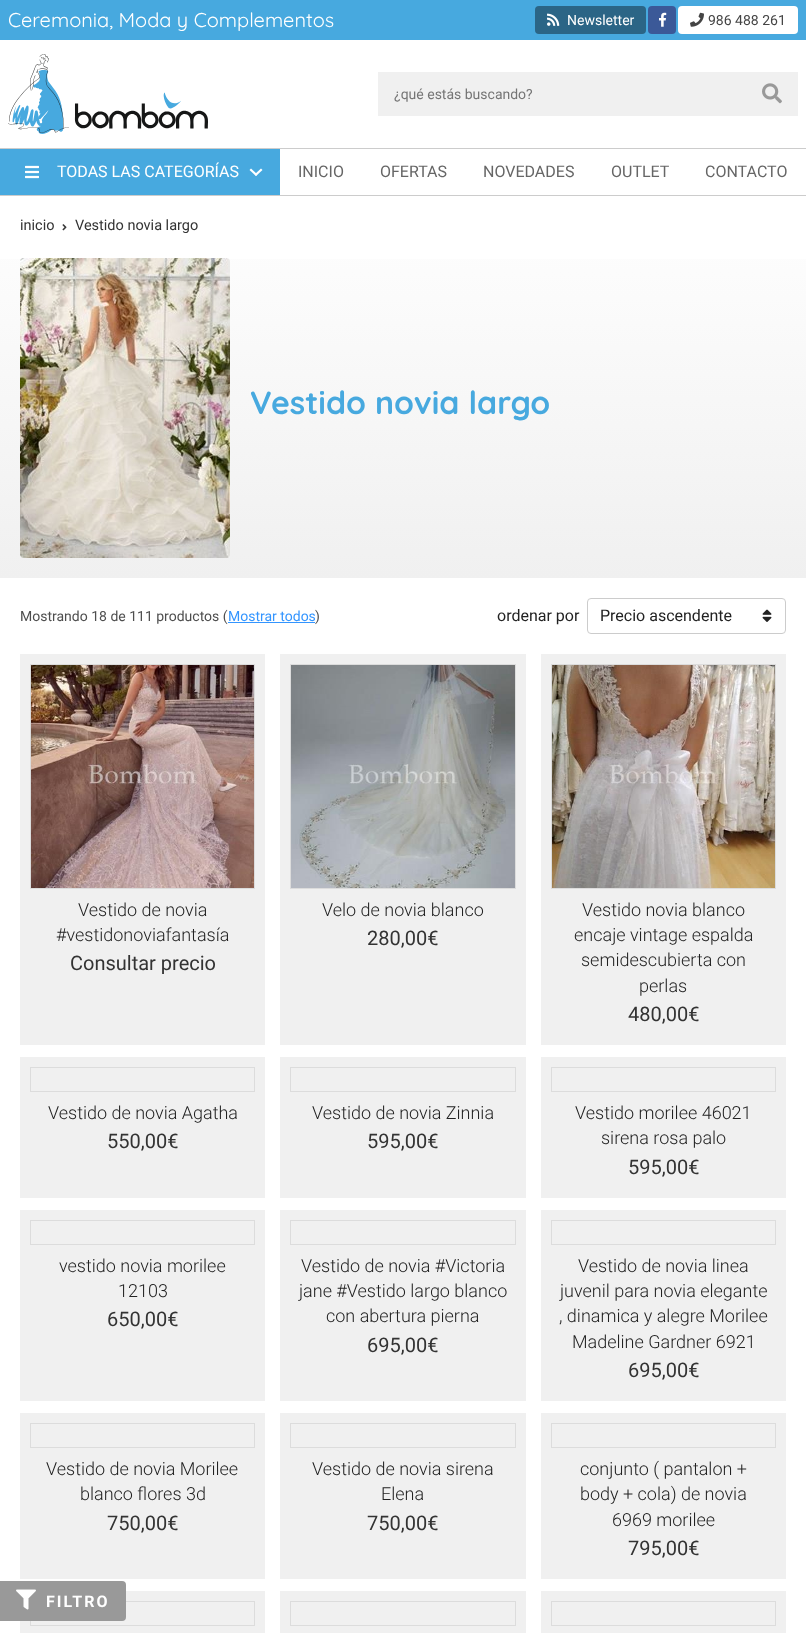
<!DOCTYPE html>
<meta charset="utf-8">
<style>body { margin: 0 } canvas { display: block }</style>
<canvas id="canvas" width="806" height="1633"></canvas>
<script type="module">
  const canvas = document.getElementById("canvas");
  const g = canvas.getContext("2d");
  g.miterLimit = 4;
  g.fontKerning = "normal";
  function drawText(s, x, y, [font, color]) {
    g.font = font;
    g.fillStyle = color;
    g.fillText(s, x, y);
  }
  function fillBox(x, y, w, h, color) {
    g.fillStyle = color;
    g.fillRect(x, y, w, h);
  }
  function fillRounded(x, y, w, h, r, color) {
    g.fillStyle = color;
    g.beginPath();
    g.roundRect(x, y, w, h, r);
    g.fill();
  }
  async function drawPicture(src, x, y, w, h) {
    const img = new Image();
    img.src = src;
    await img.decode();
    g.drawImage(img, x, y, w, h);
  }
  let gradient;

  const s1 = ["20px Quicksand", "#FFFFFF"];
  const s2 = ["14px Roboto", "#FFFFFF"];
  const s3 = ["14px Roboto", "#444444"];
  const s4 = ["14px Roboto", "#757575"];
  const s5 = ["16px Roboto", "#FFFFFF"];
  const s6 = ["16px Roboto", "#666666"];
  const s7 = ["14.5px Roboto", "#333333"];
  const s8 = ["bold 32px Quicksand", "#47A9DF"];
  const s9 = ["14px Roboto", "#4E4E4E"];
  const s10 = ["14px Roboto", "#3395FF"];
  const s11 = ["16px Roboto", "#222222"];
  const s12 = ["300 18px Roboto", "#222222"];
  const s13 = ["20px Roboto", "#333333"];
  const s14 = ["bold 16px Roboto", "#FFFFFF"];

  fillBox(0, 0, 806, 1633, "#FFFFFF");
  fillBox(0, 0, 806, 40, "#47A9DF");
  drawText("Ceremonia, Moda y Complementos", 8, 27, s1);
  fillRounded(535, 6, 111, 28, 4, "#2B6586");
  await drawPicture("pic1.png", 547, 13, 13, 13);
  drawText("Newsletter", 567, 25, s2);
  fillRounded(648, 6, 28, 28, 4, "#3B5998");
  await drawPicture("pic2.png", 659, 12, 8, 15);
  fillRounded(678, 6, 120, 28, 4, "#FFFFFF");
  await drawPicture("pic3.png", 690, 12, 14, 15);
  drawText("986 488 261", 708, 25, s3);
  fillBox(0, 148, 806, 1, "#CCCCCC");
  await drawPicture("pic4.png", 8, 54, 200, 80);
  fillBox(378, 72, 420, 44, "#F0F0F0");
  drawText("¿qué estás buscando?", 394, 99, s4);
  await drawPicture("pic5.png", 762, 83, 20, 21);
  fillBox(0, 195, 806, 1, "#CCCCCC");
  fillBox(0, 149, 280, 46, "#47A9DF");
  await drawPicture("pic6.png", 25, 165, 14, 14);
  drawText("TODAS LAS CATEGORÍAS", 57, 177, s5);
  g.beginPath();
  g.moveTo(251, 168.5);
  g.lineTo(257.5, 174.5);
  g.lineTo(256, 176);
  g.lineTo(249.5, 170);
  g.closePath();
  g.fill();
  g.beginPath();
  g.moveTo(254.5, 174.5);
  g.lineTo(261, 168.5);
  g.lineTo(262.5, 170);
  g.lineTo(256, 176);
  g.closePath();
  g.fill();
  drawText("INICIO", 298, 177, s6);
  drawText("OFERTAS", 380, 177, s6);
  drawText("NOVEDADES", 483, 177, s6);
  drawText("OUTLET", 611, 177, s6);
  drawText("CONTACTO", 705, 177, s6);
  gradient = g.createLinearGradient(403, 195, 403, 578);
  gradient.addColorStop(0, "#FFFFFF");
  gradient.addColorStop(1, "#F0F0F0");
  g.fillStyle = gradient;
  g.fillRect(0, 259, 806, 319);
  drawText("inicio", 20, 230, s7);
  await drawPicture("pic7.png", 62, 224, 5, 7);
  drawText("Vestido novia largo", 75, 230, s7);
  await drawPicture("pic8.png", 20, 258, 210, 300);
  drawText("Vestido novia largo", 250, 414, s8);
  drawText("Mostrando 18 de 111 productos (", 20, 621, s9);
  drawText("Mostrar todos", 228, 621, s10);
  fillBox(228, 622, 87, 1, "#3395FF");
  drawText(")", 315, 621, s9);
  drawText("ordenar por", 497, 621, s11);
  g.beginPath();
  g.roundRect(587.5, 598.5, 198, 35, 3.5);
  g.strokeStyle = "#CCCCCC";
  g.stroke();
  drawText("Precio ascendente", 600, 621, s11);
  await drawPicture("pic9.png", 762, 609, 10, 13);
  fillBox(20, 654, 245, 391, "#F0F0F0");
  await drawPicture("pic10.png", 31, 665, 223, 223);
  g.strokeStyle = "#DCDCDC";
  g.strokeRect(30.5, 664.5, 224, 224);
  drawText("Vestido de novia", 78, 916, s12);
  drawText("#vestidonoviafantasía", 56, 941, s12);
  drawText("Consultar precio", 70, 970, s13);
  fillBox(280, 654, 246, 391, "#F0F0F0");
  await drawPicture("pic11.png", 291, 665, 224, 223);
  g.strokeRect(290.5, 664.5, 225, 224);
  drawText("Velo de novia blanco", 322, 916, s12);
  drawText("280,00€", 367, 945, s13);
  fillBox(541, 654, 245, 391, "#F0F0F0");
  await drawPicture("pic12.png", 552, 665, 223, 223);
  g.strokeRect(551.5, 664.5, 224, 224);
  drawText("Vestido novia blanco", 582, 916, s12);
  drawText("encaje vintage espalda", 574, 941, s12);
  drawText("semidescubierta con", 581, 966, s12);
  drawText("perlas", 639, 992, s12);
  drawText("480,00€", 628, 1021, s13);
  fillBox(20, 1057, 245, 141, "#F0F0F0");
  g.strokeRect(30.5, 1067.5, 224, 24);
  drawText("Vestido de novia Agatha", 48, 1119, s12);
  drawText("550,00€", 107, 1148, s13);
  fillBox(280, 1057, 246, 141, "#F0F0F0");
  g.strokeRect(290.5, 1067.5, 225, 24);
  drawText("Vestido de novia Zinnia", 312, 1119, s12);
  drawText("595,00€", 367, 1148, s13);
  fillBox(541, 1057, 245, 141, "#F0F0F0");
  g.strokeRect(551.5, 1067.5, 224, 24);
  drawText("Vestido morilee 46021", 575, 1119, s12);
  drawText("sirena rosa palo", 601, 1144, s12);
  drawText("595,00€", 628, 1174, s13);
  fillBox(20, 1210, 245, 191, "#F0F0F0");
  g.strokeRect(30.5, 1220.5, 224, 24);
  drawText("vestido novia morilee", 59, 1272, s12);
  drawText("12103", 118, 1297, s12);
  drawText("650,00€", 107, 1326, s13);
  fillBox(280, 1210, 246, 191, "#F0F0F0");
  g.strokeRect(290.5, 1220.5, 225, 24);
  drawText("Vestido de novia #Victoria", 301, 1272, s12);
  drawText("jane #Vestido largo blanco", 299, 1297, s12);
  drawText("con abertura pierna", 326, 1322, s12);
  drawText("695,00€", 367, 1352, s13);
  fillBox(541, 1210, 245, 191, "#F0F0F0");
  g.strokeRect(551.5, 1220.5, 224, 24);
  drawText("Vestido de novia linea", 578, 1272, s12);
  drawText("juvenil para novia elegante", 560, 1297, s12);
  drawText(", dinamica y alegre Morilee", 559, 1322, s12);
  drawText("Madeline Gardner 6921", 572, 1348, s12);
  drawText("695,00€", 628, 1377, s13);
  fillBox(20, 1413, 245, 166, "#F0F0F0");
  g.strokeRect(30.5, 1423.5, 224, 24);
  drawText("Vestido de novia Morilee", 46, 1475, s12);
  drawText("blanco flores 3d", 80, 1500, s12);
  drawText("750,00€", 107, 1530, s13);
  fillBox(280, 1413, 246, 166, "#F0F0F0");
  g.strokeRect(290.5, 1423.5, 225, 24);
  drawText("Vestido de novia sirena", 312, 1475, s12);
  drawText("Elena", 381, 1500, s12);
  drawText("750,00€", 367, 1530, s13);
  fillBox(541, 1413, 245, 166, "#F0F0F0");
  g.strokeRect(551.5, 1423.5, 224, 24);
  drawText("conjunto ( pantalon +", 580, 1475, s12);
  drawText("body + cola) de novia", 580, 1500, s12);
  drawText("6969 morilee", 612, 1526, s12);
  drawText("795,00€", 628, 1555, s13);
  fillBox(20, 1591, 245, 42, "#F0F0F0");
  g.strokeRect(30.5, 1601.5, 224, 24);
  fillBox(280, 1591, 246, 42, "#F0F0F0");
  g.strokeRect(290.5, 1601.5, 225, 24);
  fillBox(541, 1591, 245, 42, "#F0F0F0");
  g.strokeRect(551.5, 1601.5, 224, 24);
  g.fillStyle = "#999999";
  g.beginPath();
  g.roundRect(0, 1581, 126, 40, [0, 4, 4, 0]);
  g.fill();
  await drawPicture("pic13.png", 16, 1589, 20, 21);
  g.letterSpacing = "2px";
  drawText("FILTRO", 46, 1607, s14);
</script>
